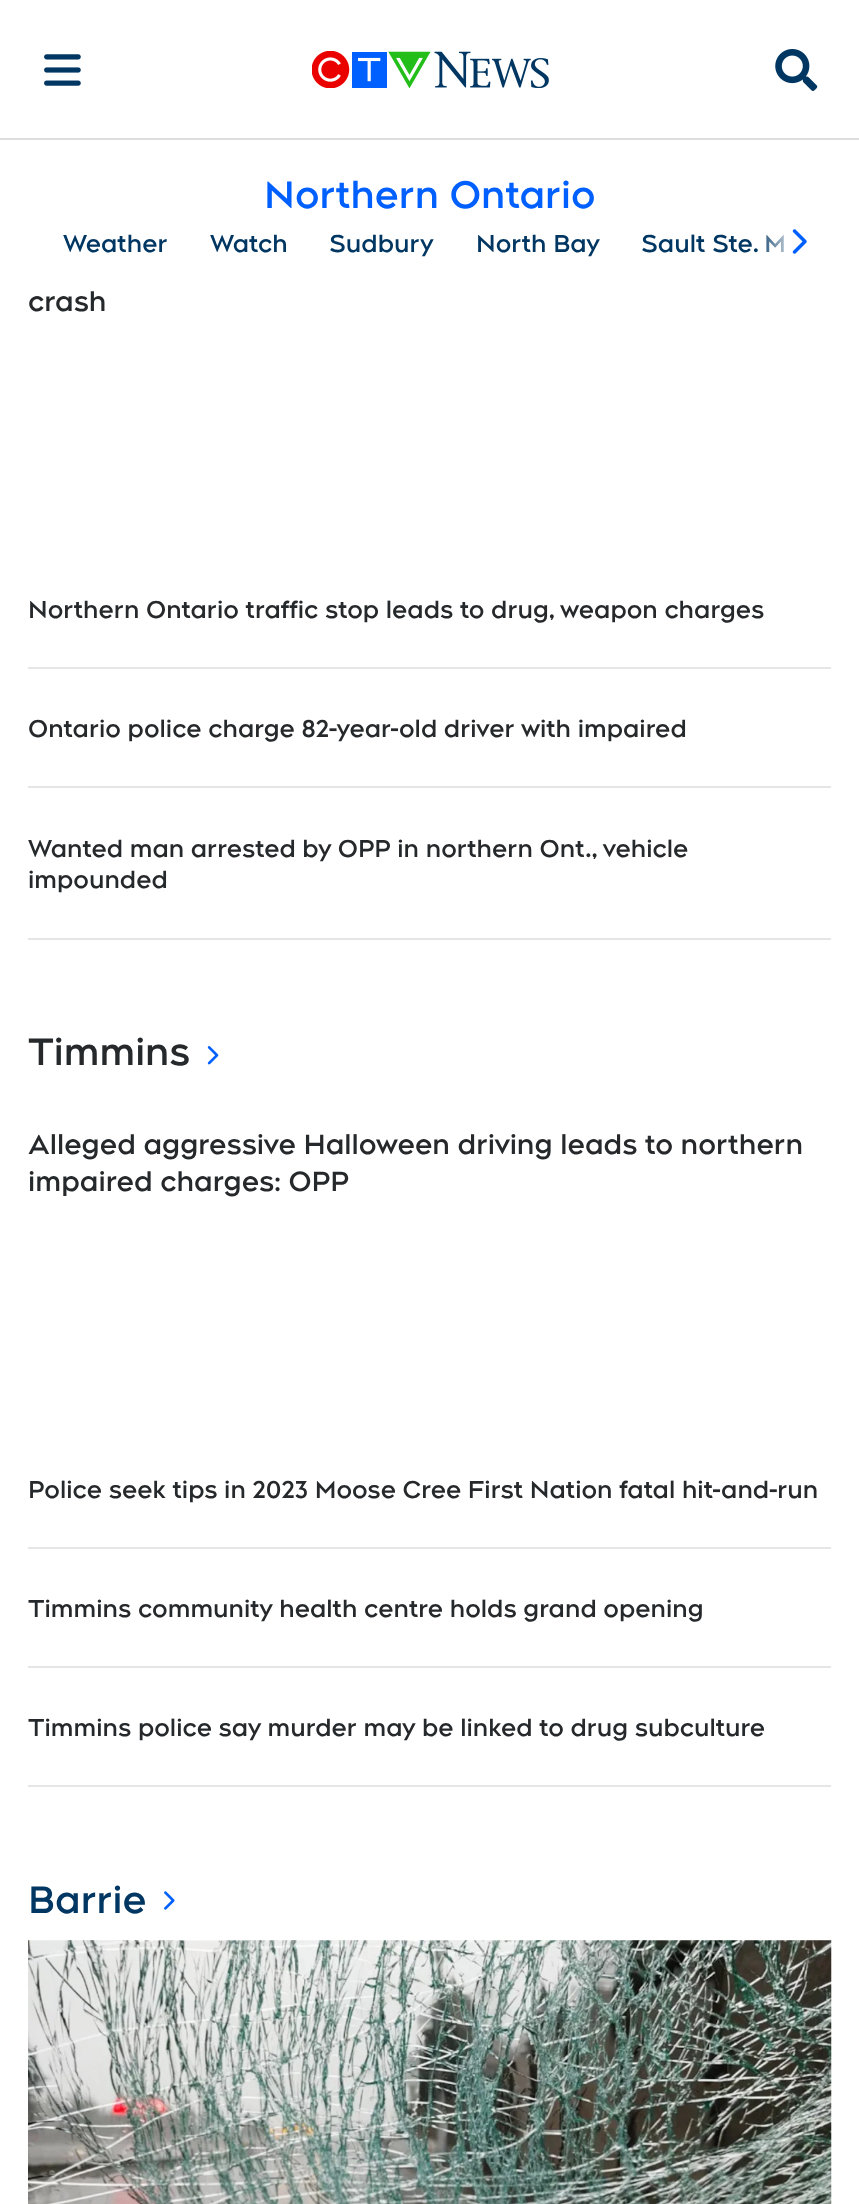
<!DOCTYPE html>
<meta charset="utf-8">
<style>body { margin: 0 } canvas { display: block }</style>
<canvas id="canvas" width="859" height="2204"></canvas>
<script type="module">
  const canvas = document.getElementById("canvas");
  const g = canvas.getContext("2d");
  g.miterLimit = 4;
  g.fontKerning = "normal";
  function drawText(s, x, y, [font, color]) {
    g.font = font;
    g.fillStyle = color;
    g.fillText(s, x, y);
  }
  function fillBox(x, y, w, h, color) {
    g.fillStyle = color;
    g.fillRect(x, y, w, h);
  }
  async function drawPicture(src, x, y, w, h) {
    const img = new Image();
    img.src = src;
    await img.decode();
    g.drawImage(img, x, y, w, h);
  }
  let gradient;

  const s1 = ["bold 38.5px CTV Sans", "#005FFF"];
  const s2 = ["bold 24.5px CTV Sans", "#003662"];
  const s3 = ["bold 28px CTV Sans", "#26292B"];
  const s4 = ["bold 24.5px CTV Sans", "#26292B"];
  const s5 = ["bold 38.5px CTV Sans", "#26292B"];
  const s6 = ["bold 38.5px CTV Sans", "#003662"];

  fillBox(0, 0, 859, 2204, "#FFFFFF");
  fillBox(0, 138, 859, 2, "#DDDDDD");
  await drawPicture("pic1.png", 44, 54, 37, 32);
  await drawPicture("pic2.png", 312, 51, 237, 37);
  await drawPicture("pic3.png", 775, 49, 43, 42);
  drawText("Northern Ontario", 264, 208, s1);
  drawText("Weather", 63, 252, s2);
  drawText("Watch", 210, 252, s2);
  drawText("Sudbury", 329, 252, s2);
  drawText("North Bay", 476, 252, s2);
  drawText("Sault Ste. M", 641, 252, s2);
  g.save();
  g.beginPath();
  g.rect(21, 219, 817, 44);
  g.clip();
  gradient = g.createLinearGradient(840, 241, 756, 241);
  gradient.addColorStop(0.5, "#FFFFFF");
  gradient.addColorStop(1, "rgba(255, 255, 255, 0)");
  g.fillStyle = gradient;
  g.beginPath();
  g.roundRect(756, 219, 84, 44, 7);
  g.fill();
  g.restore();
  await drawPicture("pic4.png", 792, 229, 15, 25);
  drawText("crash", 28, 311, s3);
  drawText("Northern Ontario traffic stop leads to drug, weapon charges", 28, 618, s4);
  fillBox(28, 667, 803, 2, "#E6E6E6");
  drawText("Ontario police charge 82-year-old driver with impaired", 28, 737, s4);
  fillBox(28, 786, 803, 2, "#E6E6E6");
  drawText("Wanted man arrested by OPP in northern Ont., vehicle", 28, 857, s4);
  drawText("impounded", 28, 888, s4);
  fillBox(28, 938, 803, 2, "#E6E6E6");
  drawText("Timmins", 28, 1065, s5);
  await drawPicture("pic5.png", 207, 1046, 12, 19);
  drawText("Alleged aggressive Halloween driving leads to northern", 28, 1154, s3);
  drawText("impaired charges: OPP", 28, 1191, s3);
  drawText("Police seek tips in 2023 Moose Cree First Nation fatal hit-and-run", 28, 1498, s4);
  fillBox(28, 1547, 803, 2, "#E6E6E6");
  drawText("Timmins community health centre holds grand opening", 28, 1617, s4);
  fillBox(28, 1666, 803, 2, "#E6E6E6");
  drawText("Timmins police say murder may be linked to drug subculture", 28, 1736, s4);
  fillBox(28, 1785, 803, 2, "#E6E6E6");
  drawText("Barrie", 28, 1913, s6);
  await drawPicture("pic6.png", 164, 1891, 11, 19);
  await drawPicture("pic7.png", 28, 1940, 804, 264);
</script>
